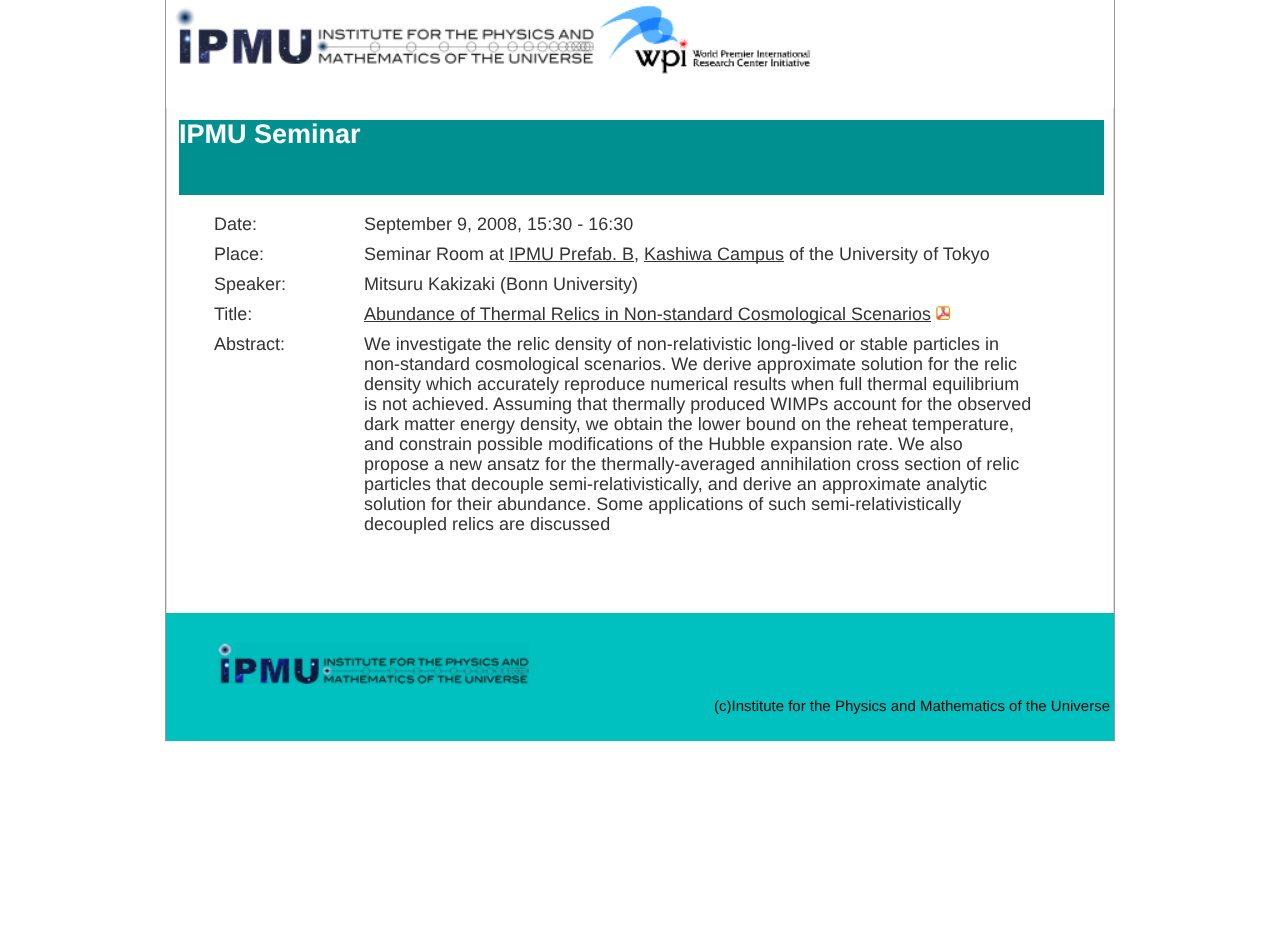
<!DOCTYPE html>
<meta charset="utf-8">
<style>body { margin: 0 } canvas { display: block }</style>
<canvas id="canvas" width="1279" height="949"></canvas>
<script type="module">
  const canvas = document.getElementById("canvas");
  const g = canvas.getContext("2d");
  g.miterLimit = 4;
  g.fontKerning = "normal";
  function drawText(s, x, y, [font, color]) {
    g.font = font;
    g.fillStyle = color;
    g.fillText(s, x, y);
  }
  function fillBox(x, y, w, h, color) {
    g.fillStyle = color;
    g.fillRect(x, y, w, h);
  }
  async function drawPicture(src, x, y, w, h) {
    const img = new Image();
    img.src = src;
    await img.decode();
    g.drawImage(img, x, y, w, h);
  }

  const s1 = ["bold 27px Liberation Sans", "#FFFFFF"];
  const s2 = ["18px Liberation Sans", "#333333"];
  const s3 = ["15px Liberation Sans", "#000000"];

  fillBox(0, 0, 1279, 949, "#FFFFFF");
  await drawPicture("pic1.png", 165, 0, 950, 742);
  fillBox(166, 0, 948, 108, "#FFFFFF");
  await drawPicture("pic2.png", 175, 7, 419, 57);
  await drawPicture("pic3.png", 593, 5, 218, 69);
  fillBox(179, 120, 925, 75, "#009090");
  drawText("IPMU Seminar", 179, 143, s1);
  drawText("Date:", 214, 230, s2);
  drawText("September 9, 2008, 15:30 - 16:30", 364, 230, s2);
  drawText("Place:", 214, 260, s2);
  drawText("Seminar Room at IPMU Prefab. B,", 364, 260, s2);
  fillBox(644, 261, 140, 1, "#333333");
  drawText("Kashiwa Campus of the University of Tokyo", 644, 260, s2);
  fillBox(509, 261, 125, 1, "#333333");
  drawText("Speaker:", 214, 290, s2);
  drawText("Mitsuru Kakizaki (Bonn University)", 364, 290, s2);
  drawText("Title:", 214, 320, s2);
  fillBox(364, 321, 567, 1, "#333333");
  drawText("Abundance of Thermal Relics in Non-standard Cosmological Scenarios", 364, 320, s2);
  await drawPicture("pic4.png", 936, 306, 14, 14);
  drawText("Abstract:", 214, 350, s2);
  drawText("We investigate the relic density of non-relativistic long-lived or stable particles in", 364, 350, s2);
  drawText("non-standard cosmological scenarios. We derive approximate solution for the relic", 364, 370, s2);
  drawText("density which accurately reproduce numerical results when full thermal equilibrium", 364, 390, s2);
  drawText("is not achieved. Assuming that thermally produced WIMPs account for the observed", 364, 410, s2);
  drawText("dark matter energy density, we obtain the lower bound on the reheat temperature,", 364, 430, s2);
  drawText("and constrain possible modifications of the Hubble expansion rate.", 364, 450, s2);
  drawText("We also", 898, 450, s2);
  drawText("propose a new ansatz for the thermally-averaged annihilation cross section of relic", 364, 470, s2);
  drawText("particles that decouple semi-relativistically, and derive an approximate analytic", 364, 490, s2);
  drawText("solution for their abundance. Some applications of such semi-relativistically", 364, 510, s2);
  drawText("decoupled relics are discussed", 364, 530, s2);
  fillBox(166, 613, 948, 128, "#00C0C0");
  await drawPicture("pic5.png", 218, 643, 311, 41);
  drawText("(c)Institute for the Physics and Mathematics of the Universe", 714, 711, s3);
</script>
